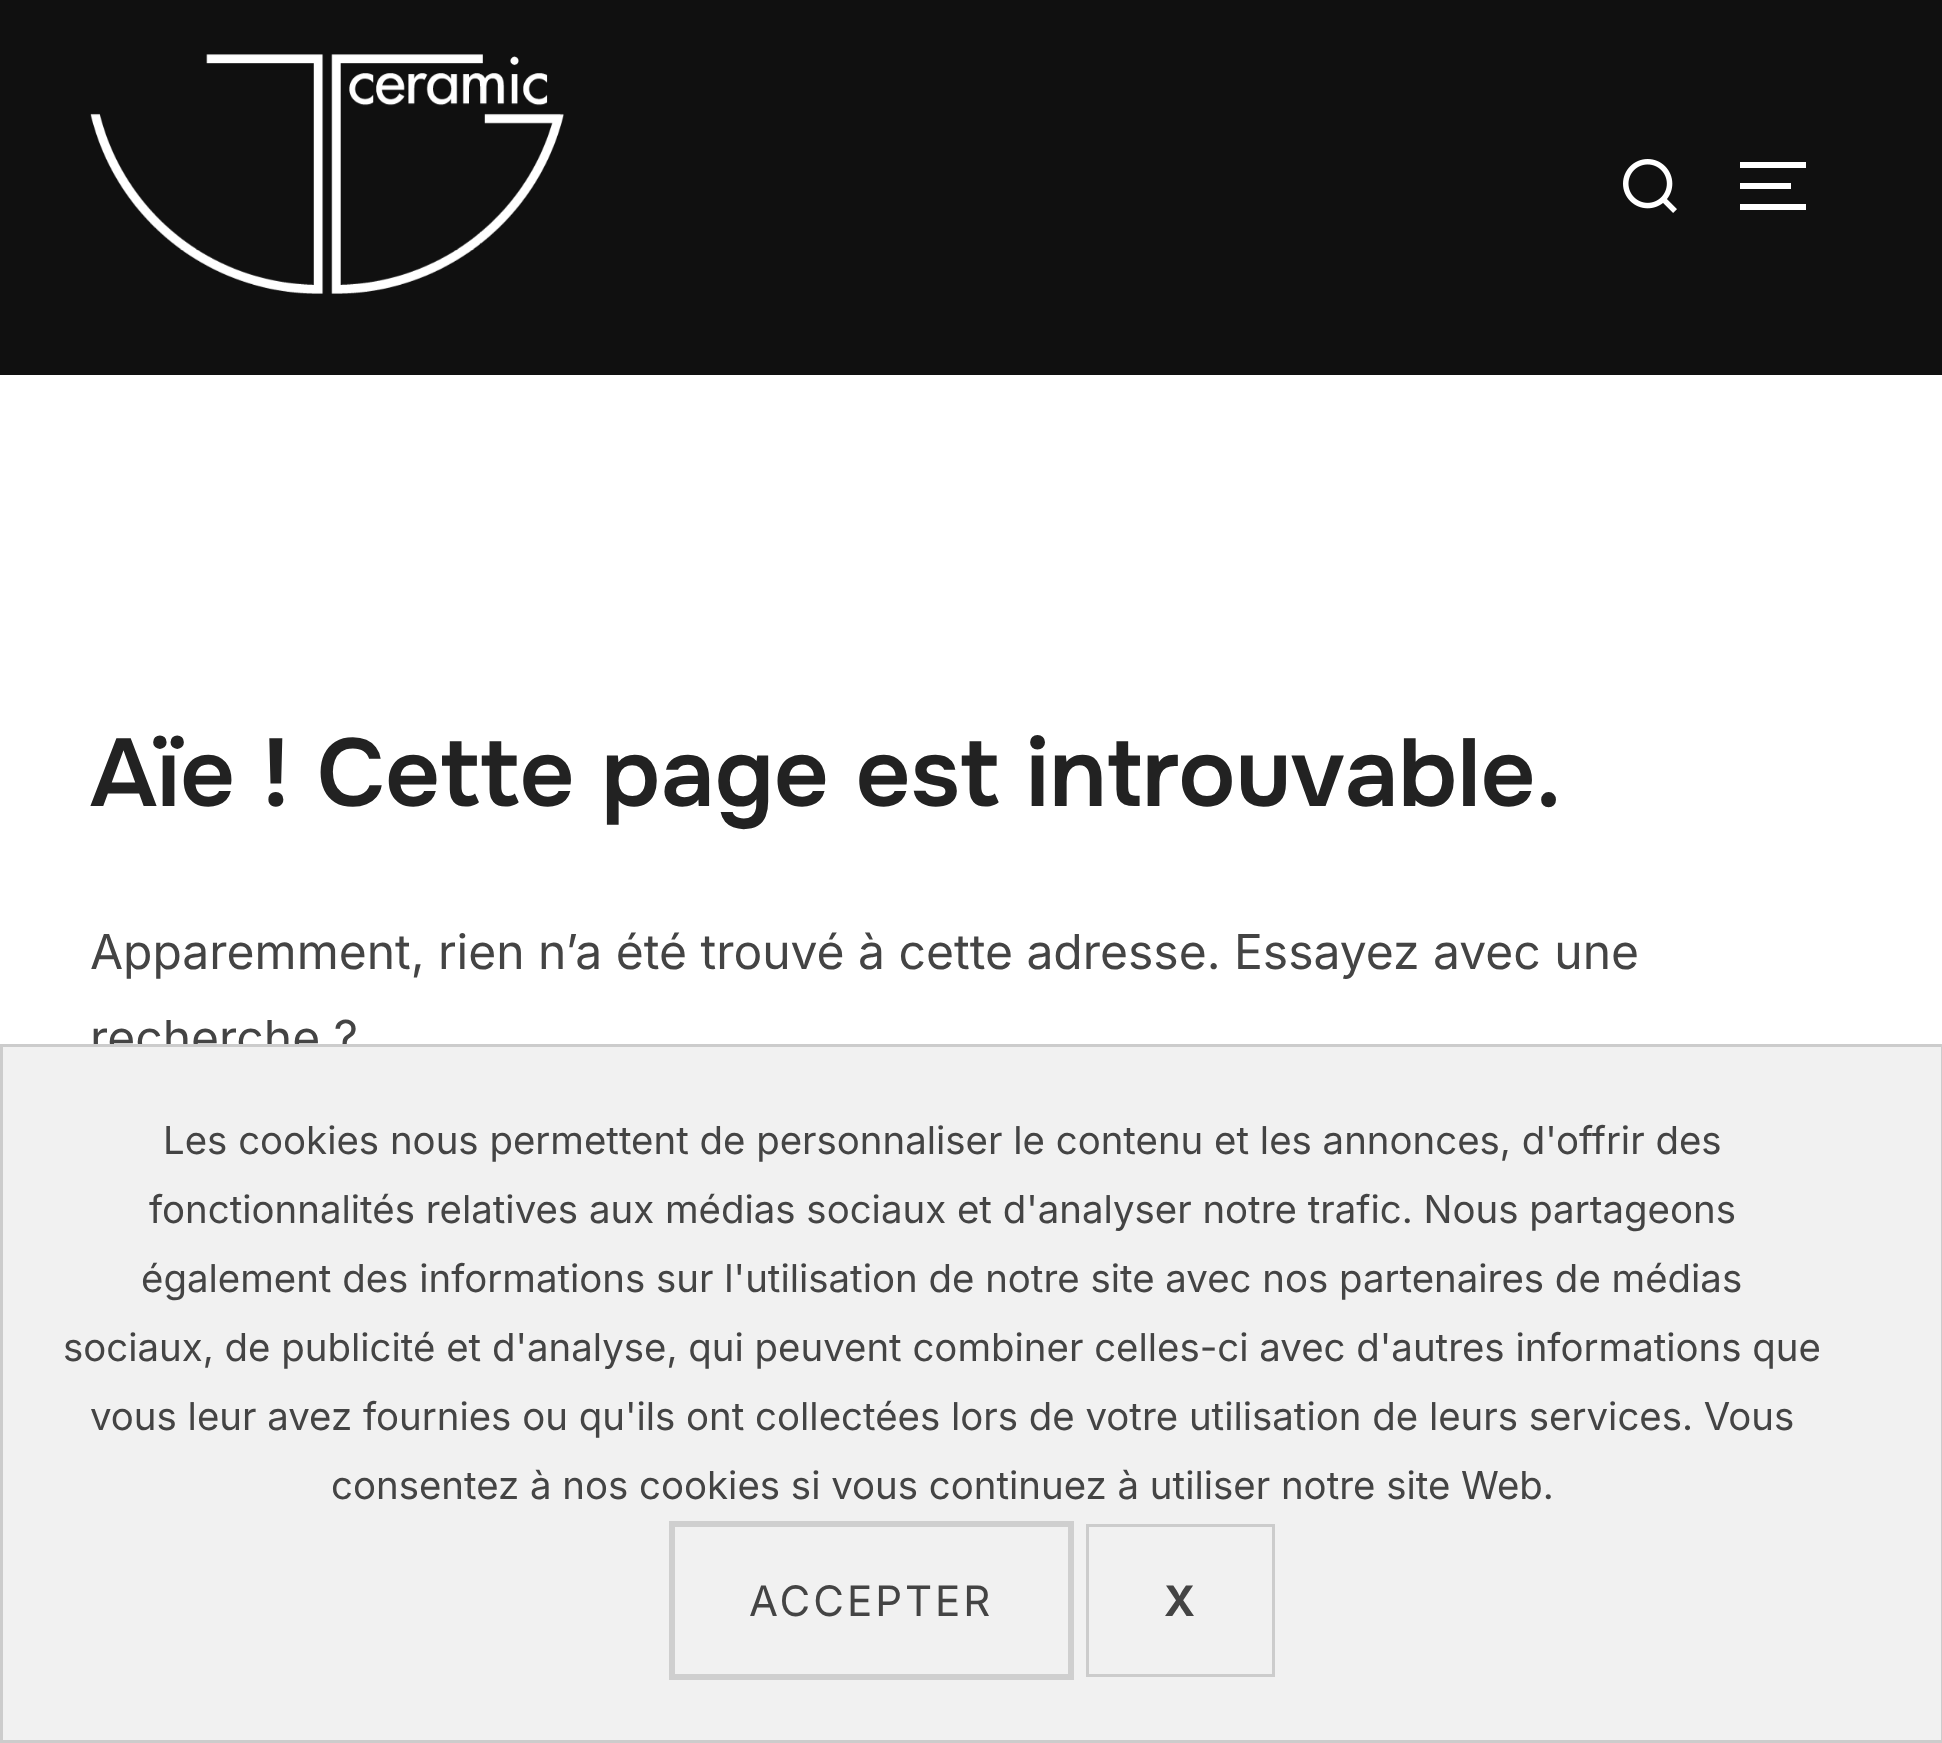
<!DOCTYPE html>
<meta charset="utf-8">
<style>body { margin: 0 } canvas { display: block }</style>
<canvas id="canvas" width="1942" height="1743"></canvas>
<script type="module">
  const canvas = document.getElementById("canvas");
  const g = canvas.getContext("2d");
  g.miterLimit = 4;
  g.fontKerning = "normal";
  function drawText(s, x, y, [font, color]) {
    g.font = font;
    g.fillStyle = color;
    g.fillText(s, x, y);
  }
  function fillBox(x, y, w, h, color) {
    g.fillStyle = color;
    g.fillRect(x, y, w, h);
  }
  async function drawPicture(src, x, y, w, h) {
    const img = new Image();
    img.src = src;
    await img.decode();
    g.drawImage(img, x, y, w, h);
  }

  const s1 = ["600 96px Onest", "#222222"];
  const s2 = ["48px Inter", "#444444"];
  const s3 = ["38.4px Inter", "#444444"];
  const s4 = ["42px Inter", "#444444"];
  const s5 = ["bold 42px Inter", "#444444"];

  fillBox(0, 0, 1942, 1743, "#FFFFFF");
  fillBox(0, 0, 1942, 375, "#101010");
  await drawPicture("pic1.png", 90, 54, 474, 240);
  await drawPicture("pic2.png", 1623, 159, 54, 54);
  fillBox(1740, 162, 66, 6, "#FFFFFF");
  fillBox(1740, 183, 51, 6, "#FFFFFF");
  fillBox(1740, 204, 66, 6, "#FFFFFF");
  drawText("Aïe ! Cette page est introuvable.", 90, 806, s1);
  drawText("Apparemment, rien n’a été trouvé à cette adresse. Essayez avec une", 90, 969, s2);
  drawText("recherche ?", 90, 1055, s2);
  g.fillStyle = "#F1F1F1";
  g.beginPath();
  g.rect(1.5, 1045.5, 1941, 696);
  g.fill();
  g.strokeStyle = "#CCCCCC";
  g.lineWidth = 3;
  g.stroke();
  drawText("Les cookies nous permettent de personnaliser le contenu et les annonces, d'offrir des", 163, 1154, s3);
  drawText("fonctionnalités relatives aux médias sociaux et d'analyser notre trafic. Nous partageons", 149, 1223, s3);
  drawText("également des informations sur l'utilisation de notre site avec nos partenaires de médias", 141, 1292, s3);
  drawText("sociaux, de publicité et d'analyse, qui peuvent combiner celles-ci avec d'autres informations que", 63, 1361, s3);
  drawText("vous leur avez fournies ou qu'ils ont collectées lors de votre utilisation de leurs services. Vous", 90, 1430, s3);
  drawText("consentez à nos cookies si vous continuez à utiliser notre site Web.", 331, 1499, s3);
  g.strokeStyle = "#CFCFCF";
  g.lineWidth = 6;
  g.strokeRect(672, 1524, 399, 153);
  g.letterSpacing = "3px";
  drawText("ACCEPTER", 749, 1616, s4);
  g.strokeStyle = "#CCCCCC";
  g.lineWidth = 3;
  g.strokeRect(1087.5, 1525.5, 186, 150);
  drawText("X", 1164, 1616, s5);
</script>
